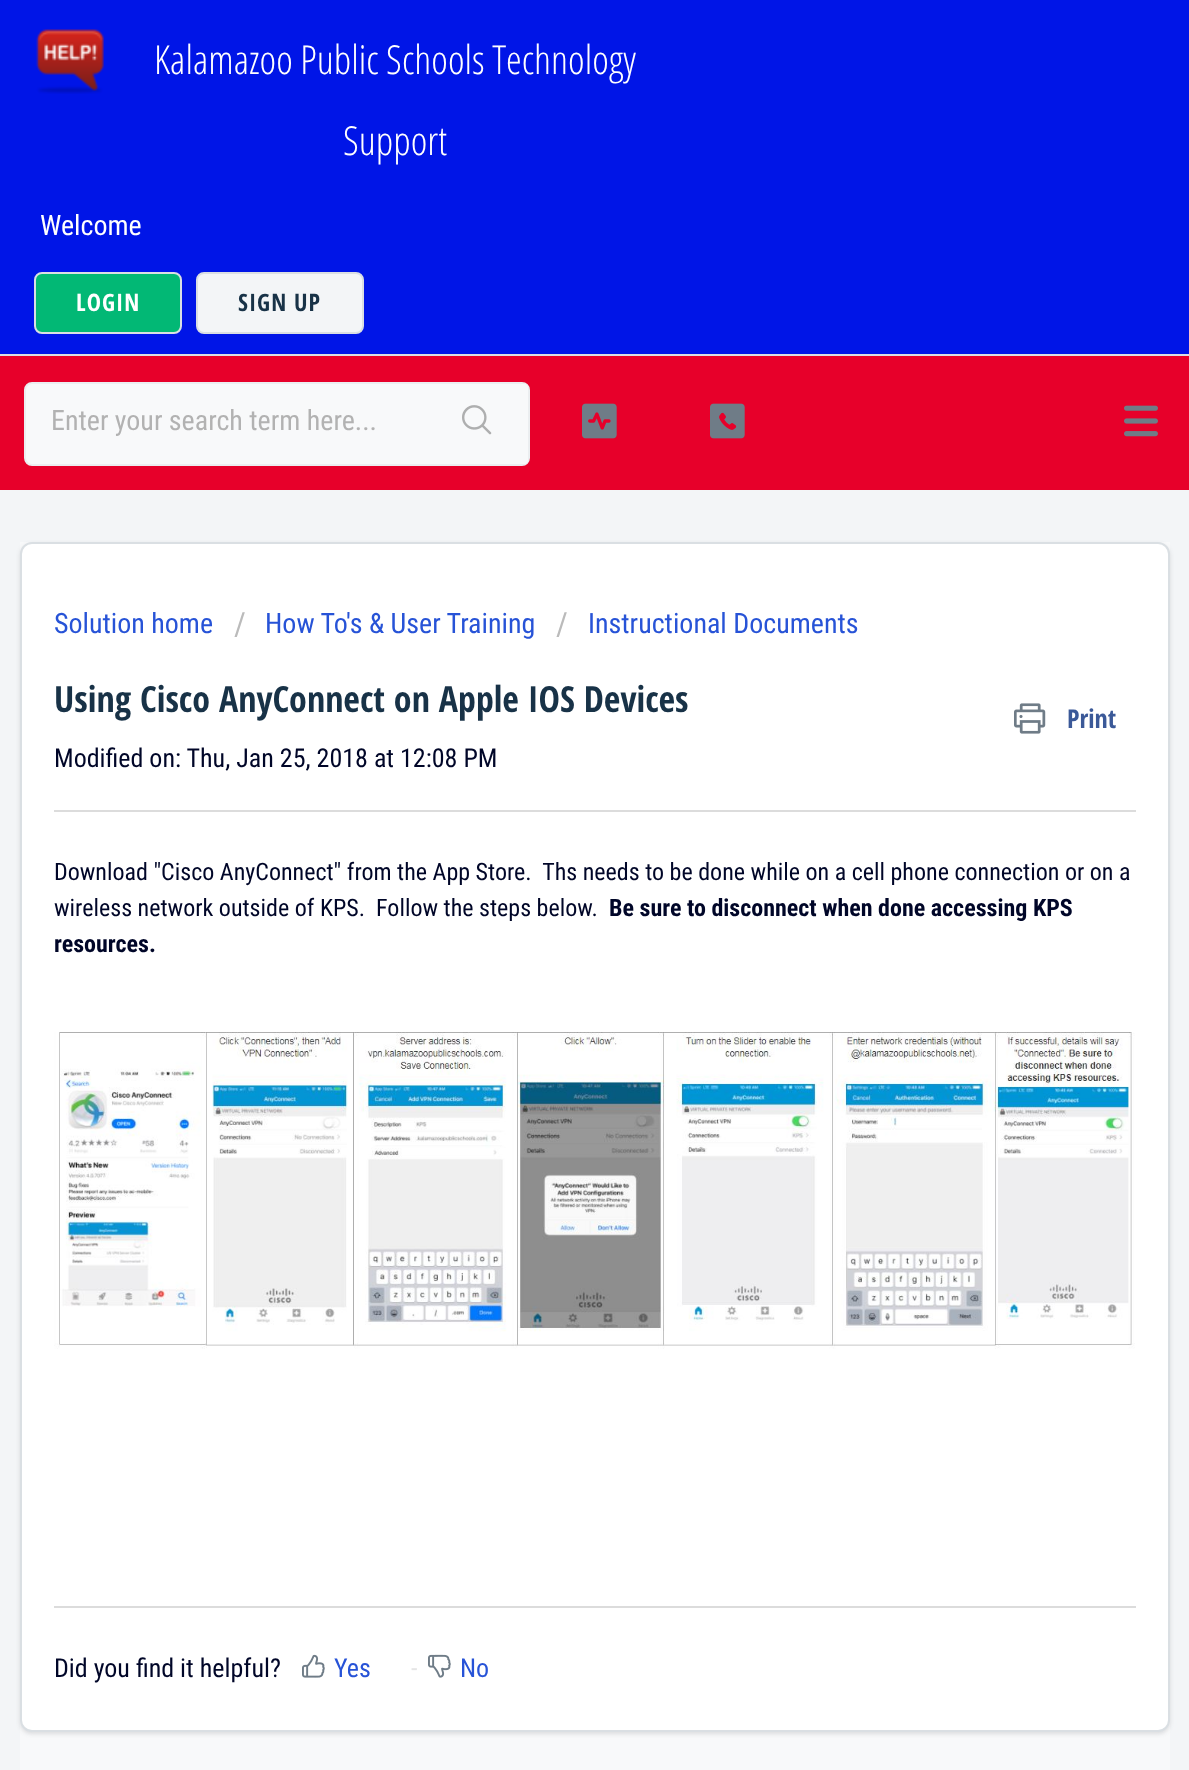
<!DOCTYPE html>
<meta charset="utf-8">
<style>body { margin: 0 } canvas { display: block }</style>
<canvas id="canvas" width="1189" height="1770"></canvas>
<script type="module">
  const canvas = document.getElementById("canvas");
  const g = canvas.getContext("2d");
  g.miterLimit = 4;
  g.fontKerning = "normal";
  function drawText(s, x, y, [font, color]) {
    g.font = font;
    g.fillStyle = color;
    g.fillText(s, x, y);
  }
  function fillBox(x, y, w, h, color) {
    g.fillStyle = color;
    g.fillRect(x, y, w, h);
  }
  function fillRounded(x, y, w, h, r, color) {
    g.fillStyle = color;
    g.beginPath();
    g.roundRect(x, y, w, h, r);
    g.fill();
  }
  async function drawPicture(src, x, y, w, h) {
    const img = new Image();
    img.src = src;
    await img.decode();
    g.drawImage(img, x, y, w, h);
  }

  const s1 = ["300 40px Open Sans Condensed", "#FFFFFF"];
  const s2 = ["28px Roboto Condensed", "#FFFFFF"];
  const s3 = ["bold 24px Open Sans Condensed", "#FFFFFF"];
  const s4 = ["bold 24px Open Sans Condensed", "#183247"];
  const s5 = ["28px Roboto Condensed", "#B2B2B2"];
  const s6 = ["28px Roboto Condensed", "#2753D7"];
  const s7 = ["32px Roboto Condensed", "#BBBBBB"];
  const s8 = ["bold 36px Open Sans Condensed", "#183247"];
  const s9 = ["bold 26px Open Sans Condensed", "#3B5998"];
  const s10 = ["26px Roboto Condensed", "#000628"];
  const s11 = ["24px Roboto Condensed", "#000628"];
  const s12 = ["bold 24px Roboto Condensed", "#000628"];
  const s13 = ["26px Roboto Condensed", "#2753D7"];
  const s14 = ["26px Roboto Condensed", "#E5E5E5"];

  fillBox(0, 0, 1189, 1770, "#F3F5F7");
  fillBox(0, 0, 1189, 354, "#0015E7");
  fillBox(0, 354, 1189, 2, "#DADFE3");
  await drawPicture("pic1.png", 36, 29, 68, 65);
  drawText("Kalamazoo Public Schools Technology", 154, 74, s1);
  drawText("Support", 343, 155, s1);
  drawText("Welcome", 40, 235, s2);
  g.fillStyle = "#02B875";
  g.beginPath();
  g.roundRect(35, 273, 146, 60, 7);
  g.fill();
  g.strokeStyle = "#DADFE3";
  g.lineWidth = 2;
  g.stroke();
  g.letterSpacing = "1px";
  drawText("LOGIN", 76, 311, s3);
  g.fillStyle = "#F3F5F7";
  g.beginPath();
  g.roundRect(197, 273, 166, 60, 7);
  g.fill();
  g.stroke();
  drawText("SIGN UP", 238, 311, s4);
  fillBox(0, 356, 1189, 134, "#E7002A");
  await drawPicture("pic2.png", 1124, 405, 34, 32);
  g.fillStyle = "#F8F9FA";
  g.beginPath();
  g.roundRect(25, 383, 504, 82, 7);
  g.fill();
  g.strokeStyle = "#EBEEF0";
  g.stroke();
  g.letterSpacing = "0px";
  drawText("Enter your search term here...", 51, 430, s5);
  fillRounded(428, 384, 100, 80, 4, "#F8F9FA");
  await drawPicture("pic3.png", 462, 405, 30, 30);
  await drawPicture("pic4.png", 582, 403, 35, 36);
  await drawPicture("pic5.png", 710, 403, 35, 36);
  fillBox(20, 542, 1150, 1228, "#F8F9FA");
  g.fillStyle = "rgba(63, 63, 68, 0.15)";
  g.filter = "blur(2px)";
  g.beginPath();
  g.roundRect(20, 544, 1150, 1190, 12);
  g.fill();
  g.filter = "none";
  g.fillStyle = "#FFFFFF";
  g.beginPath();
  g.roundRect(21, 543, 1148, 1188, 11);
  g.fill();
  g.strokeStyle = "#DADFE3";
  g.stroke();
  drawText("Solution home", 54, 633, s6);
  drawText("/", 234, 635, s7);
  drawText("How To's & User Training", 265, 633, s6);
  drawText("/", 556, 635, s7);
  drawText("Instructional Documents", 588, 633, s6);
  drawText("Using Cisco AnyConnect on Apple IOS Devices", 54, 712, s8);
  await drawPicture("pic6.png", 1014, 703, 32, 31);
  drawText("Print", 1067, 728, s9);
  drawText("Modified on: Thu, Jan 25, 2018 at 12:08 PM", 54, 767, s10);
  fillBox(54, 810, 1082, 2, "#DCDCDC");
  drawText("Download \"Cisco AnyConnect\" from the App Store.  Ths needs to be done while on a cell phone connection or on a", 54, 880, s11);
  drawText("wireless network outside of KPS.  Follow the steps below.", 54, 916, s11);
  drawText("Be sure to disconnect when done accessing KPS", 609, 916, s12);
  drawText("resources.", 54, 952, s12);
  await drawPicture("pic7.png", 54, 1032, 1081, 317);
  fillBox(54, 1606, 1082, 2, "#DCDCDC");
  drawText("Did you find it helpful?", 54, 1677, s10);
  await drawPicture("pic8.png", 302, 1654, 23, 24);
  drawText("Yes", 334, 1677, s13);
  drawText("-", 411, 1677, s14);
  await drawPicture("pic9.png", 428, 1654, 23, 24);
  drawText("No", 460, 1677, s13);
</script>
